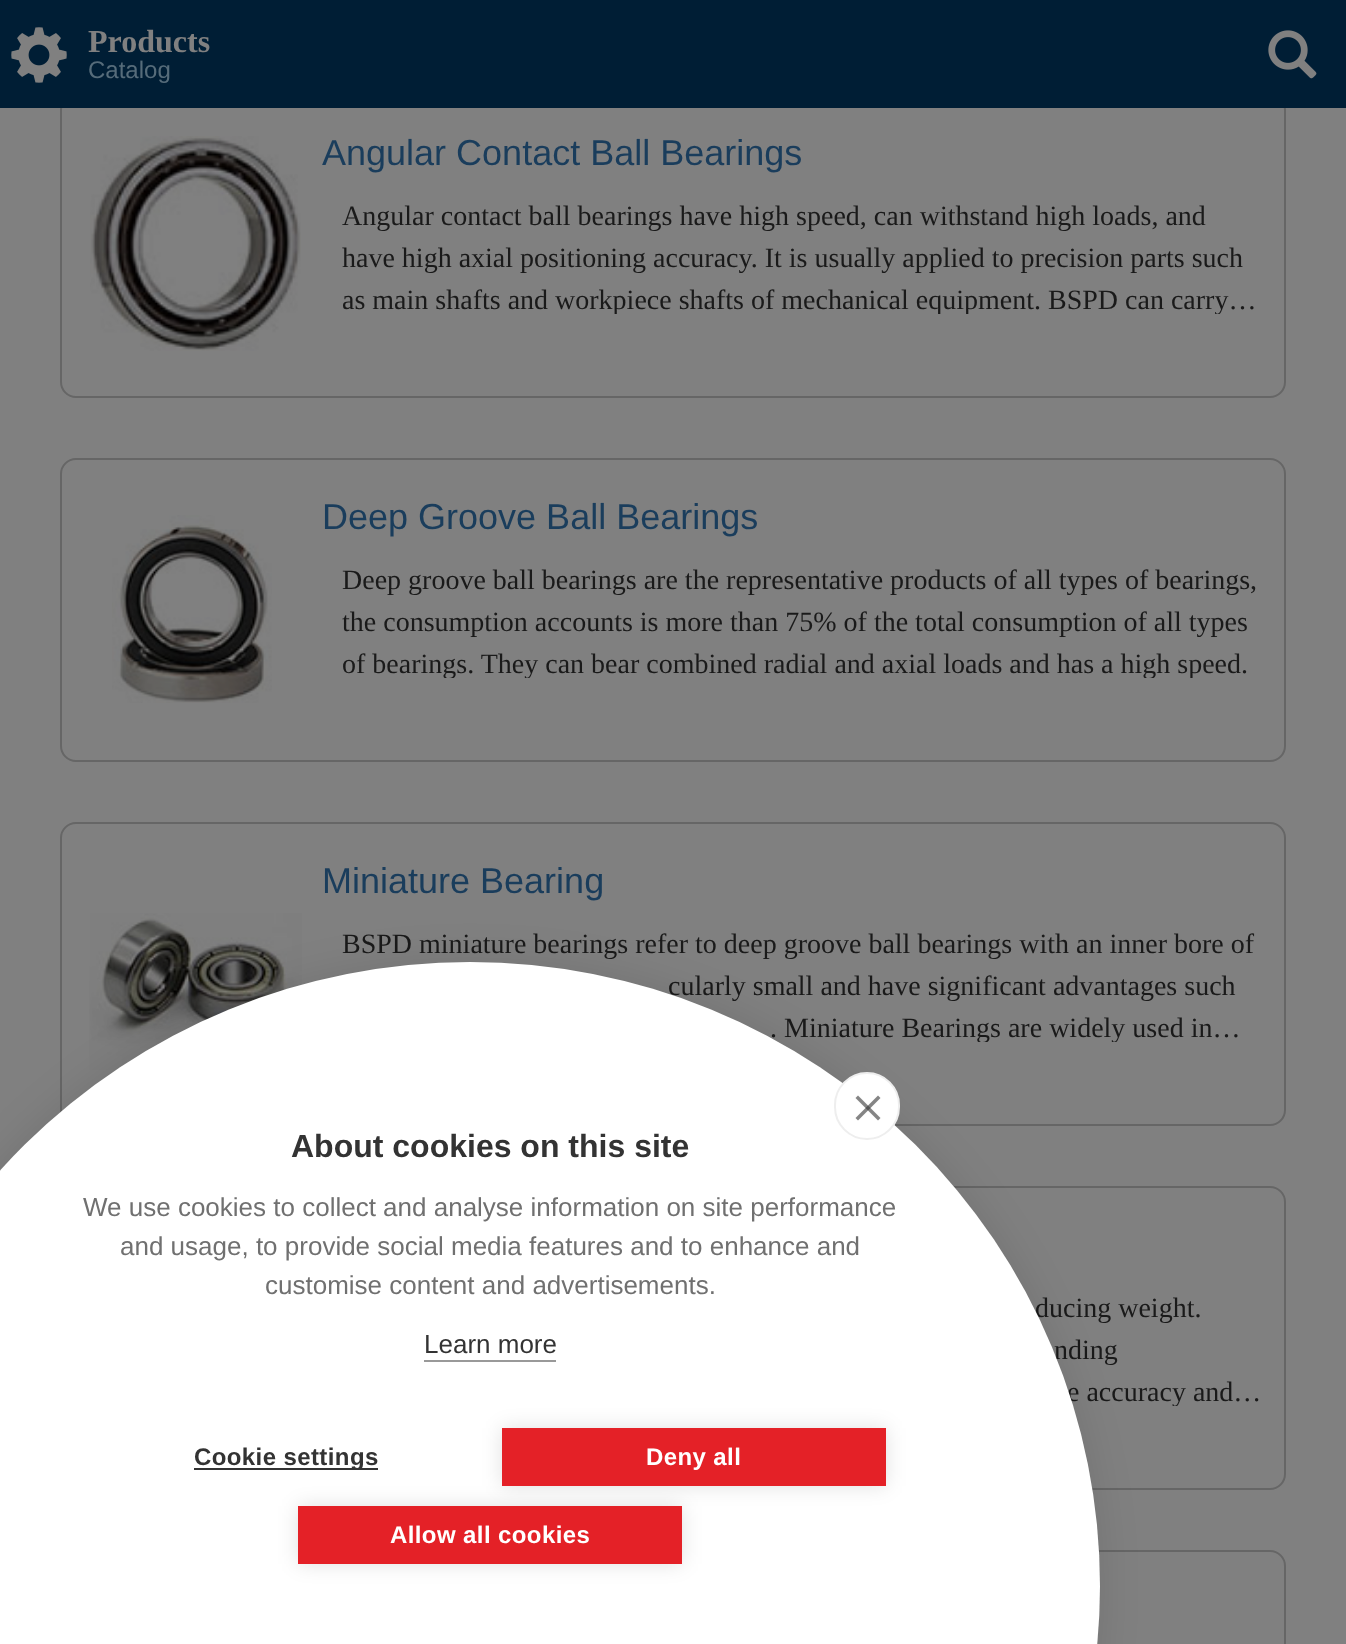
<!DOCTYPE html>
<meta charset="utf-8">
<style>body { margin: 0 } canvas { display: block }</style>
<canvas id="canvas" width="1346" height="1644"></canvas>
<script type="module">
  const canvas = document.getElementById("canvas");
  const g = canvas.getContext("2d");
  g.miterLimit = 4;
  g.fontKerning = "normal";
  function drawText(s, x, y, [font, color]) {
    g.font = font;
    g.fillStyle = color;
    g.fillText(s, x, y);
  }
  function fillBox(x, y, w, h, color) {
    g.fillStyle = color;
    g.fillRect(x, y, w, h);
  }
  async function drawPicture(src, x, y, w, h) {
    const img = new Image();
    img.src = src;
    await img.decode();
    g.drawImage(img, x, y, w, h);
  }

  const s1 = ["bold 32px Liberation Serif", "#808080"];
  const s2 = ["24px Liberation Sans", "#566C7A"];
  const s3 = ["36px Liberation Sans", "#1A3D5C"];
  const s4 = ["28px Liberation Serif", "#1A1A1A"];
  const s5 = ["bold 32px Liberation Sans", "#333333"];
  const s6 = ["26px Liberation Sans", "#707070"];
  const s7 = ["26px Liberation Sans", "#333333"];
  const s8 = ["bold 24px Liberation Sans", "#333333"];
  const s9 = ["bold 24px Liberation Sans", "#FFFFFF"];

  fillBox(0, 0, 1346, 1644, "#808080");
  g.beginPath();
  g.roundRect(61, 95, 1224, 302, 15);
  g.strokeStyle = "#666666";
  g.lineWidth = 2;
  g.stroke();
  fillBox(0, 0, 1346, 108, "#001E35");
  await drawPicture("pic1.png", 11, 27, 56, 56);
  drawText("Products", 88, 52, s1);
  drawText("Catalog", 88, 78, s2);
  await drawPicture("pic2.png", 1268, 30, 49, 49);
  await drawPicture("pic3.png", 90, 136, 211, 215);
  drawText("Angular Contact Ball Bearings", 322, 165, s3);
  drawText("Angular contact ball bearings have high speed, can withstand high loads, and", 342, 225, s4);
  drawText("have high axial positioning accuracy. It is usually applied to precision parts such", 342, 267, s4);
  g.save();
  g.beginPath();
  g.rect(322, 194, 942, 120);
  g.clip();
  drawText("as main shafts and workpiece shafts of mechanical equipment. BSPD can carry…", 342, 309, s4);
  g.restore();
  g.beginPath();
  g.roundRect(61, 459, 1224, 302, 15);
  g.stroke();
  await drawPicture("pic4.png", 112, 515, 160, 188);
  drawText("Deep Groove Ball Bearings", 322, 529, s3);
  drawText("Deep groove ball bearings are the representative products of all types of bearings,", 342, 589, s4);
  drawText("the consumption accounts is more than 75% of the total consumption of all types", 342, 631, s4);
  g.save();
  g.beginPath();
  g.rect(322, 558, 942, 120);
  g.clip();
  drawText("of bearings. They can bear combined radial and axial loads and has a high speed.", 342, 673, s4);
  g.restore();
  g.beginPath();
  g.roundRect(61, 823, 1224, 302, 15);
  g.stroke();
  drawText("Miniature Bearing", 322, 893, s3);
  await drawPicture("pic5.png", 89, 913, 213, 157);
  drawText("BSPD miniature bearings refer to deep groove ball bearings with an inner bore of", 342, 953, s4);
  drawText("cularly small and have significant advantages such", 668, 995, s4);
  g.save();
  g.beginPath();
  g.rect(322, 922, 942, 120);
  g.clip();
  drawText(". Miniature Bearings are widely used in…", 770, 1037, s4);
  g.restore();
  g.beginPath();
  g.roundRect(61, 1187, 1224, 302, 15);
  g.stroke();
  drawText("ducing weight.", 1035, 1317, s4);
  drawText("nding", 1054, 1359, s4);
  g.save();
  g.beginPath();
  g.rect(322, 1286, 942, 120);
  g.clip();
  drawText("e accuracy and…", 1067, 1401, s4);
  g.restore();
  g.beginPath();
  g.roundRect(61, 1551, 1224, 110, 15);
  g.stroke();
  g.fillStyle = "rgba(0, 0, 0, 0.1)";
  g.filter = "blur(20px)";
  g.beginPath();
  g.roundRect(-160, 962, 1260, 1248, 624);
  g.fill();
  g.filter = "none";
  g.fillStyle = "#FFFFFF";
  g.beginPath();
  g.ellipse(470, 1586, 630, 624, 0, 0, Math.PI * 2);
  g.fill();
  g.beginPath();
  g.roundRect(835, 1073, 64, 66, 32);
  g.fill();
  g.strokeStyle = "#EEEEEE";
  g.stroke();
  g.fillStyle = "#858585";
  g.beginPath();
  g.moveTo(855.5, 1118);
  g.lineTo(878, 1095.5);
  g.lineTo(880.5, 1098);
  g.lineTo(858, 1120.5);
  g.closePath();
  g.fill();
  g.fillStyle = "rgba(51, 51, 51, 0.6)";
  g.beginPath();
  g.moveTo(858, 1095.5);
  g.lineTo(880.5, 1118);
  g.lineTo(878, 1120.5);
  g.lineTo(855.5, 1098);
  g.closePath();
  g.fill();
  drawText("About cookies on this site", 291, 1157, s5);
  drawText("We use cookies to collect and analyse information on site performance", 83, 1216, s6);
  drawText("and usage, to provide social media features and to enhance and", 120, 1255, s6);
  drawText("customise content and advertisements.", 265, 1294, s6);
  drawText("Learn more", 424, 1353, s7);
  fillBox(424, 1360, 132, 2, "#999999");
  fillBox(194, 1468, 184, 2, "#333333");
  g.letterSpacing = "0.4px";
  drawText("Cookie settings", 194, 1465, s8);
  g.fillStyle = "rgba(0, 0, 0, 0.12)";
  g.filter = "blur(10px)";
  g.beginPath();
  g.rect(502, 1428, 384, 58);
  g.fill();
  g.filter = "none";
  fillBox(502, 1428, 384, 58, "#E42127");
  drawText("Deny all", 646, 1465, s9);
  g.fillStyle = "rgba(0, 0, 0, 0.12)";
  g.filter = "blur(10px)";
  g.beginPath();
  g.rect(298, 1506, 384, 58);
  g.fill();
  g.filter = "none";
  fillBox(298, 1506, 384, 58, "#E42127");
  drawText("Allow all cookies", 390, 1543, s9);
</script>
